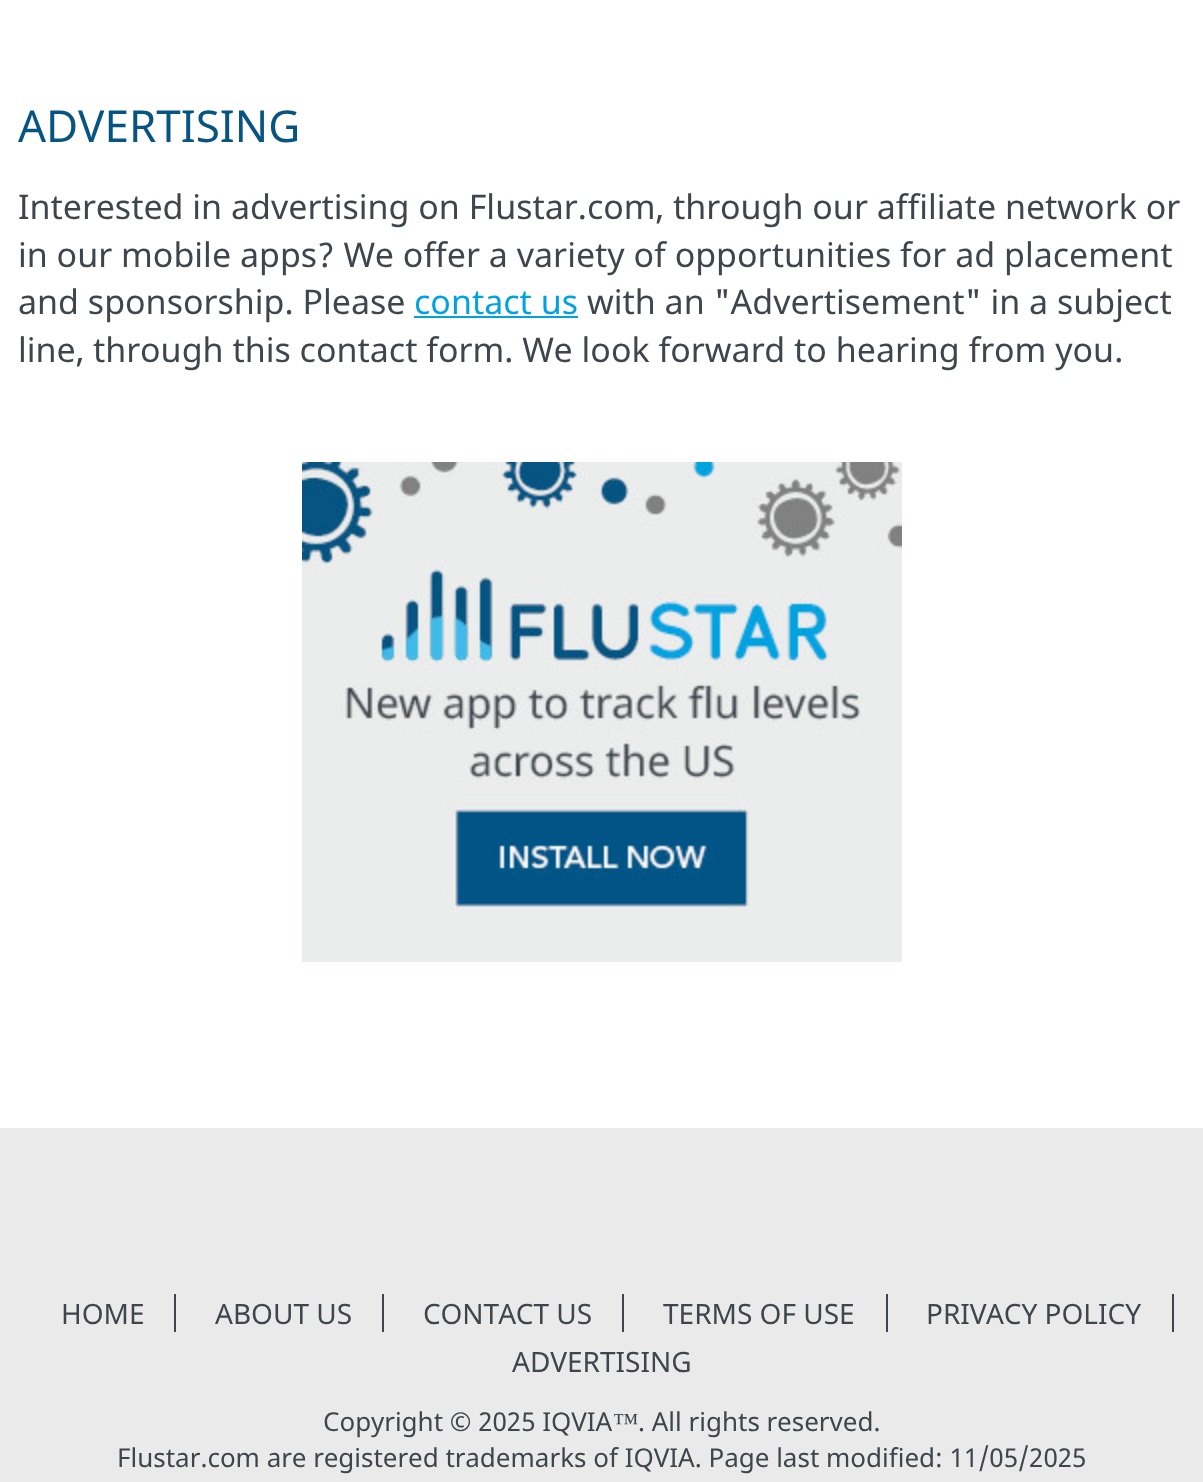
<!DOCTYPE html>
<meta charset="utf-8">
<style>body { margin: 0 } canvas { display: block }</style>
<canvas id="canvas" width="1203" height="1482"></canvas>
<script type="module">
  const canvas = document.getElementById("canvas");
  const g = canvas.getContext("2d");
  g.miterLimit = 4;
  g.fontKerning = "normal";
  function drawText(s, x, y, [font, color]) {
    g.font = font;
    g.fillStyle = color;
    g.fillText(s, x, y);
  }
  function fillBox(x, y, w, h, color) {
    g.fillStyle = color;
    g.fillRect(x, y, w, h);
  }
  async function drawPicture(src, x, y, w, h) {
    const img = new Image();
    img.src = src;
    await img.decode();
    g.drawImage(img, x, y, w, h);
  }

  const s1 = ["44px Noto Sans", "#055482"];
  const s2 = ["34px Noto Sans", "#3F454C"];
  const s3 = ["34px Noto Sans", "#00A3E0"];
  const s4 = ["28px Noto Sans", "#3F454C"];
  const s5 = ["26px Noto Sans", "#3F454C"];
  const s6 = ["26px Liberation Serif", "#3F454C"];

  fillBox(0, 0, 1203, 1482, "#FFFFFF");
  drawText("ADVERTISING", 18, 142, s1);
  drawText("Interested in advertising on Flustar.com, through our affiliate network or", 18, 219, s2);
  drawText("in our mobile apps? We offer a variety of opportunities for ad placement", 18, 267, s2);
  drawText("and sponsorship. Please", 18, 314, s2);
  drawText("contact us", 414, 314, s3);
  fillBox(414, 316, 164, 2, "#00A3E0");
  drawText("with an \"Advertisement\" in a subject", 587, 314, s2);
  drawText("line, through this contact form. We look forward to hearing from you.", 18, 362, s2);
  await drawPicture("pic1.png", 302, 462, 600, 500);
  fillBox(0, 1128, 1203, 354, "#EAEAEA");
  drawText("HOME", 61, 1324, s4);
  fillBox(174, 1294, 2, 38, "#3F454C");
  drawText("ABOUT US", 215, 1324, s4);
  fillBox(382, 1294, 2, 38, "#3F454C");
  drawText("CONTACT US", 423, 1324, s4);
  fillBox(622, 1294, 2, 38, "#3F454C");
  drawText("TERMS OF USE", 663, 1324, s4);
  fillBox(886, 1294, 2, 38, "#3F454C");
  drawText("PRIVACY POLICY", 926, 1324, s4);
  fillBox(1172, 1294, 2, 38, "#3F454C");
  drawText("ADVERTISING", 512, 1372, s4);
  drawText("Copyright © 2025 IQVIA", 323, 1431, s5);
  drawText("™", 613, 1431, s6);
  drawText(". All rights reserved.", 638, 1431, s5);
  drawText("Flustar.com are registered trademarks of IQVIA. Page last modified: 11/05/2025", 117, 1467, s5);
</script>
